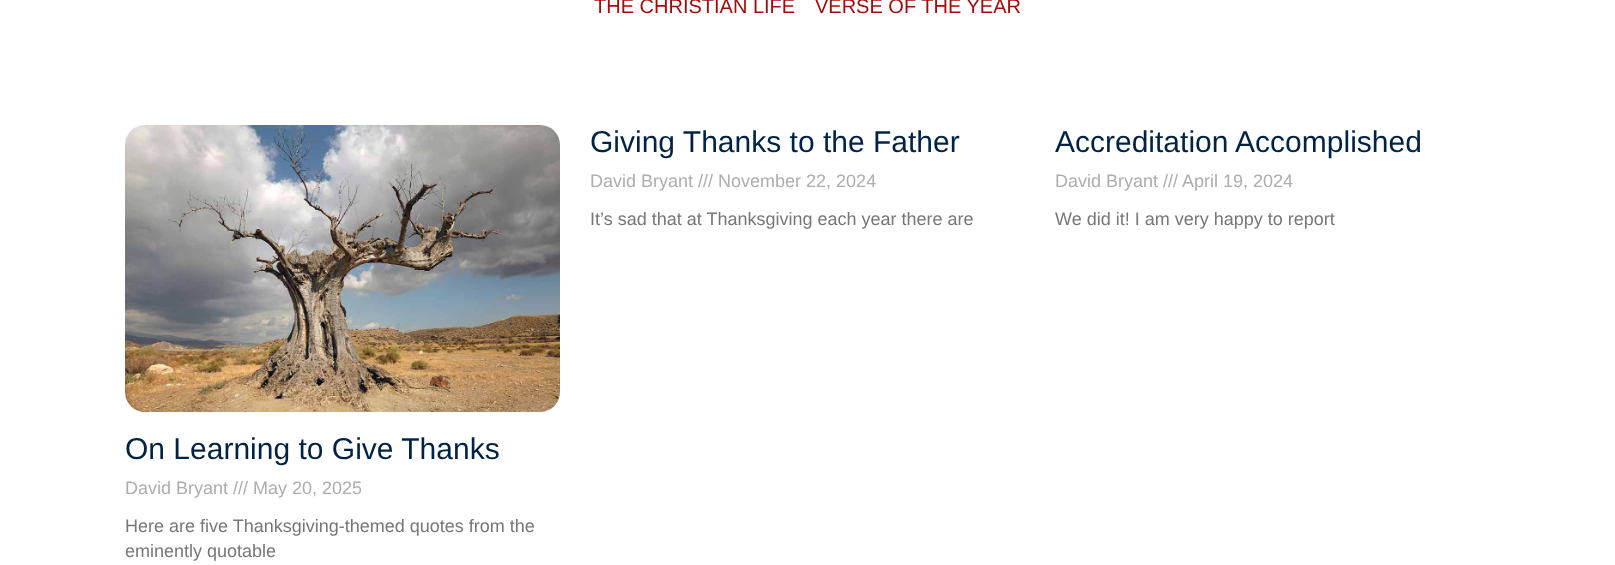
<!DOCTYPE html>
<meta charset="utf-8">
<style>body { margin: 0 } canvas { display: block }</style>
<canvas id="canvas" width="1615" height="565"></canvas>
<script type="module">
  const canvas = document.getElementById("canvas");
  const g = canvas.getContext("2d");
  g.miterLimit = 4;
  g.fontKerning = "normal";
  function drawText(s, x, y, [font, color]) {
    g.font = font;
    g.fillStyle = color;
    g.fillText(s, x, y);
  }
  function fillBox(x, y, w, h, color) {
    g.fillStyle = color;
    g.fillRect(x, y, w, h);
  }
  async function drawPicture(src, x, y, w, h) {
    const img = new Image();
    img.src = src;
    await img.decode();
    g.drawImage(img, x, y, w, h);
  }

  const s1 = ["20px Liberation Sans", "#A10D0D"];
  const s2 = ["30px Liberation Sans", "#002245"];
  const s3 = ["18px Liberation Sans", "#ADADAD"];
  const s4 = ["18px Liberation Sans", "#777777"];

  fillBox(0, 0, 1615, 565, "#FFFFFF");
  drawText("THE CHRISTIAN LIFE", 594, 13, s1);
  drawText("VERSE OF THE YEAR", 815, 13, s1);
  drawText("Giving Thanks to the Father", 590, 152, s2);
  drawText("David Bryant /// November 22, 2024", 590, 187, s3);
  drawText("It’s sad that at Thanksgiving each year there are", 590, 225, s4);
  drawText("Accreditation Accomplished", 1055, 152, s2);
  drawText("David Bryant ///", 1055, 187, s3);
  drawText("April 19, 2024", 1182, 187, s3);
  drawText("We did it! I am very happy to report", 1055, 225, s4);
  await drawPicture("pic1.png", 125, 125, 435, 287);
  drawText("On Learning to Give Thanks", 125, 459, s2);
  drawText("David Bryant /// May 20, 2025", 125, 494, s3);
  drawText("Here are five Thanksgiving-themed quotes from the", 125, 532, s4);
  drawText("eminently quotable", 125, 557, s4);
</script>
